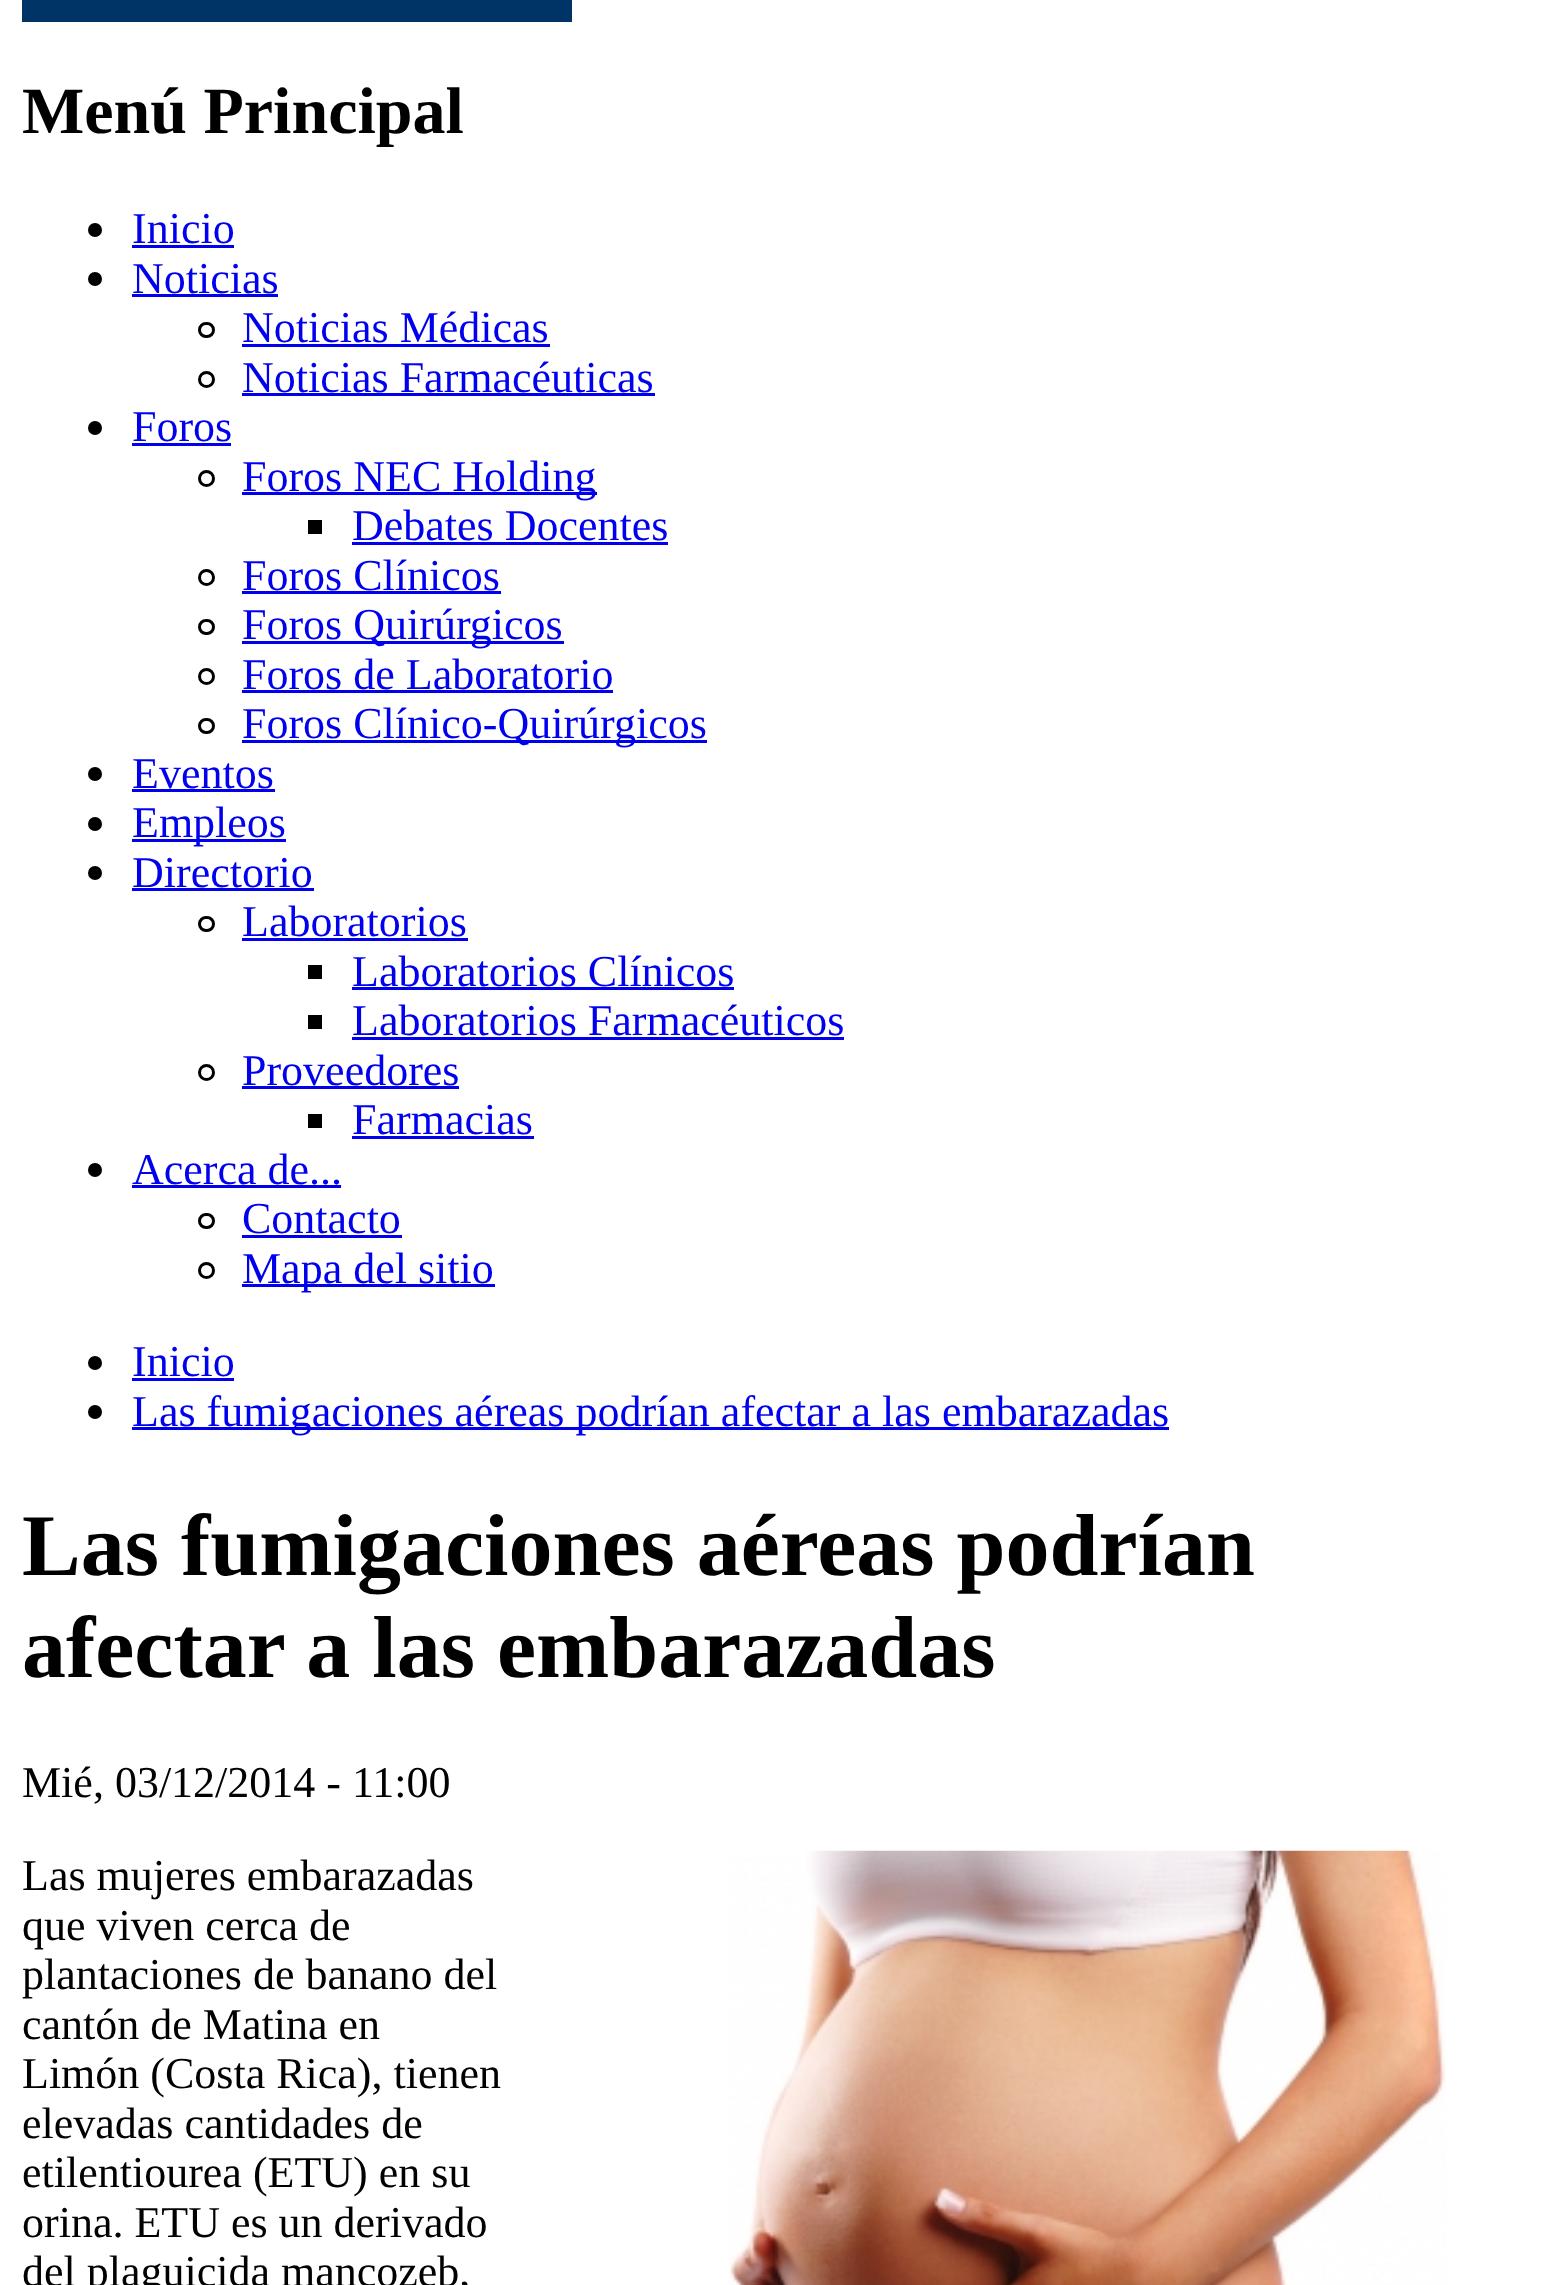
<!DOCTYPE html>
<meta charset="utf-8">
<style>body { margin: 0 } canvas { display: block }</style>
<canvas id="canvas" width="1556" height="2285"></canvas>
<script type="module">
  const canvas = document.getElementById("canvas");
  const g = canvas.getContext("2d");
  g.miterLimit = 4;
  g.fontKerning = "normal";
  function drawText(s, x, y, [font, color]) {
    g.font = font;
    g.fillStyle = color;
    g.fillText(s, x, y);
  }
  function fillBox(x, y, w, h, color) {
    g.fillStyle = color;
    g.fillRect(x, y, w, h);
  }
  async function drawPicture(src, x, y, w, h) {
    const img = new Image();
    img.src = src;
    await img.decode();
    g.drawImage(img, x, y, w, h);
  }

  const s1 = ["bold 66px Liberation Serif", "#000000"];
  const s2 = ["44px Liberation Serif", "#0000EE"];
  const s3 = ["bold 88px Liberation Serif", "#000000"];
  const s4 = ["44px Liberation Serif", "#000000"];

  fillBox(0, 0, 1556, 2285, "#FFFFFF");
  fillBox(22, 0, 550, 22, "#003366");
  drawText("Menú Principal", 22, 133, s1);
  g.beginPath();
  g.arc(95, 230, 7, 0, Math.PI * 2);
  g.fill();
  drawText("Inicio", 132, 243, s2);
  fillBox(132, 245, 102, 3, "#0000EE");
  g.fillStyle = "#000000";
  g.beginPath();
  g.arc(95, 279, 7, 0, Math.PI * 2);
  g.fill();
  drawText("Noticias", 132, 293, s2);
  fillBox(132, 294, 146, 3, "#0000EE");
  g.beginPath();
  g.roundRect(199.5, 323.5, 14, 13, 6.5);
  g.strokeStyle = "#000000";
  g.lineWidth = 3;
  g.stroke();
  drawText("Noticias Médicas", 242, 342, s2);
  fillBox(242, 344, 308, 3, "#0000EE");
  g.beginPath();
  g.arc(206.5, 379.5, 7, 0, Math.PI * 2);
  g.stroke();
  drawText("Noticias Farmacéuticas", 242, 392, s2);
  fillBox(242, 393, 413, 3, "#0000EE");
  g.fillStyle = "#000000";
  g.beginPath();
  g.arc(95, 428, 7, 0, Math.PI * 2);
  g.fill();
  drawText("Foros", 132, 441, s2);
  fillBox(132, 443, 99, 3, "#0000EE");
  g.beginPath();
  g.arc(206.5, 478.5, 7, 0, Math.PI * 2);
  g.stroke();
  fillBox(242, 492, 355, 3, "#0000EE");
  drawText("Foros NEC Holding", 242, 491, s2);
  fillBox(308, 520, 14, 14, "#000000");
  drawText("Debates Docentes", 352, 540, s2);
  fillBox(352, 542, 316, 3, "#0000EE");
  g.beginPath();
  g.arc(206.5, 577.5, 7, 0, Math.PI * 2);
  g.stroke();
  drawText("Foros Clínicos", 242, 590, s2);
  fillBox(242, 591, 259, 3, "#0000EE");
  g.beginPath();
  g.roundRect(199.5, 620.5, 14, 13, 6.5);
  g.stroke();
  fillBox(242, 641, 322, 3, "#0000EE");
  drawText("Foros Quirúrgicos", 242, 639, s2);
  g.beginPath();
  g.arc(206.5, 676.5, 7, 0, Math.PI * 2);
  g.stroke();
  drawText("Foros de Laboratorio", 242, 689, s2);
  fillBox(242, 690, 371, 3, "#0000EE");
  g.beginPath();
  g.roundRect(199.5, 719.5, 14, 13, 6.5);
  g.stroke();
  fillBox(242, 740, 465, 3, "#0000EE");
  drawText("Foros Clínico-Quirúrgicos", 242, 738, s2);
  g.fillStyle = "#000000";
  g.beginPath();
  g.arc(95, 774, 7, 0, Math.PI * 2);
  g.fill();
  drawText("Eventos", 132, 788, s2);
  fillBox(132, 789, 143, 3, "#0000EE");
  g.fillStyle = "#000000";
  g.beginPath();
  g.arc(95, 824, 7, 0, Math.PI * 2);
  g.fill();
  fillBox(132, 839, 154, 3, "#0000EE");
  drawText("Empleos", 132, 837, s2);
  g.fillStyle = "#000000";
  g.beginPath();
  g.arc(95, 873, 7, 0, Math.PI * 2);
  g.fill();
  drawText("Directorio", 132, 887, s2);
  fillBox(132, 888, 182, 3, "#0000EE");
  g.beginPath();
  g.roundRect(199.5, 917.5, 14, 13, 6.5);
  g.stroke();
  drawText("Laboratorios", 242, 936, s2);
  fillBox(242, 938, 226, 3, "#0000EE");
  fillBox(308, 965, 14, 14, "#000000");
  drawText("Laboratorios Clínicos", 352, 986, s2);
  fillBox(352, 987, 382, 3, "#0000EE");
  fillBox(308, 1015, 14, 14, "#000000");
  drawText("Laboratorios Farmacéuticos", 352, 1035, s2);
  fillBox(352, 1037, 492, 3, "#0000EE");
  g.beginPath();
  g.arc(206.5, 1072.5, 7, 0, Math.PI * 2);
  g.stroke();
  drawText("Proveedores", 242, 1085, s2);
  fillBox(242, 1086, 217, 3, "#0000EE");
  fillBox(308, 1114, 14, 14, "#000000");
  drawText("Farmacias", 352, 1134, s2);
  fillBox(352, 1136, 182, 3, "#0000EE");
  g.fillStyle = "#000000";
  g.beginPath();
  g.arc(95, 1170, 7, 0, Math.PI * 2);
  g.fill();
  drawText("Acerca de...", 132, 1184, s2);
  fillBox(132, 1185, 209, 3, "#0000EE");
  g.beginPath();
  g.roundRect(199.5, 1214.5, 14, 13, 6.5);
  g.stroke();
  drawText("Contacto", 242, 1233, s2);
  fillBox(242, 1235, 160, 3, "#0000EE");
  g.beginPath();
  g.arc(206.5, 1270.5, 7, 0, Math.PI * 2);
  g.stroke();
  fillBox(242, 1284, 253, 3, "#0000EE");
  drawText("Mapa del sitio", 242, 1283, s2);
  g.fillStyle = "#000000";
  g.beginPath();
  g.arc(95, 1363, 7, 0, Math.PI * 2);
  g.fill();
  drawText("Inicio", 132, 1376, s2);
  fillBox(132, 1378, 102, 3, "#0000EE");
  g.fillStyle = "#000000";
  g.beginPath();
  g.arc(95, 1412, 7, 0, Math.PI * 2);
  g.fill();
  fillBox(132, 1427, 1037, 3, "#0000EE");
  drawText("Las fumigaciones aéreas podrían afectar a las embarazadas", 132, 1426, s2);
  drawText("Las fumigaciones aéreas podrían", 22, 1575, s3);
  drawText("afectar a las embarazadas", 22, 1677, s3);
  drawText("Mié, 03/12/2014 - 11:00", 22, 1797, s4);
  drawText("Las mujeres embarazadas", 22, 1890, s4);
  await drawPicture("pic1.png", 728, 1850, 718, 435);
  drawText("que viven cerca de", 22, 1940, s4);
  drawText("plantaciones de banano del", 22, 1989, s4);
  drawText("cantón de Matina en", 22, 2039, s4);
  drawText("Limón (Costa Rica), tienen", 22, 2088, s4);
  drawText("elevadas cantidades de", 22, 2138, s4);
  drawText("etilentiourea (ETU) en su", 22, 2187, s4);
  drawText("orina. ETU es un derivado", 22, 2237, s4);
  drawText("del plaguicida mancozeb,", 22, 2286, s4);
</script>
